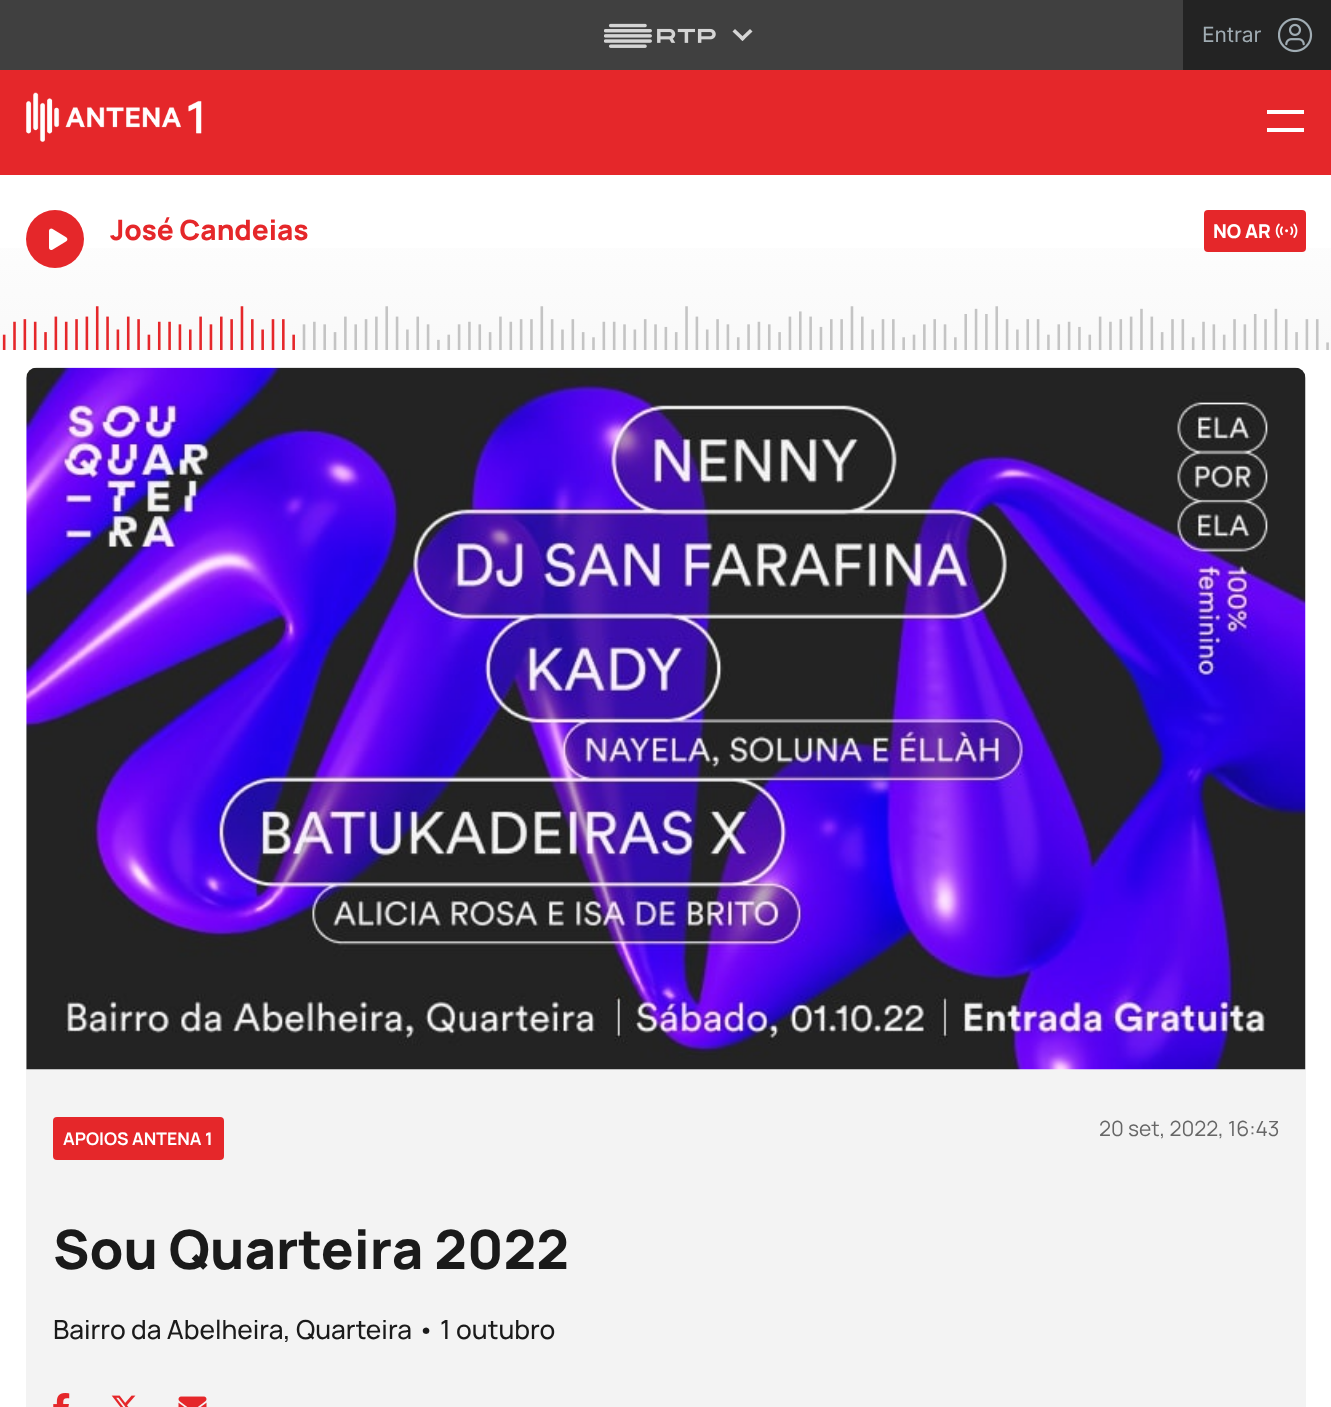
<!DOCTYPE html>
<meta charset="utf-8">
<style>body { margin: 0 } canvas { display: block }</style>
<canvas id="canvas" width="1331" height="1407"></canvas>
<script type="module">
  const canvas = document.getElementById("canvas");
  const g = canvas.getContext("2d");
  g.miterLimit = 4;
  g.fontKerning = "normal";
  function drawText(s, x, y, [font, color]) {
    g.font = font;
    g.fillStyle = color;
    g.fillText(s, x, y);
  }
  function fillBox(x, y, w, h, color) {
    g.fillStyle = color;
    g.fillRect(x, y, w, h);
  }
  function fillRounded(x, y, w, h, r, color) {
    g.fillStyle = color;
    g.beginPath();
    g.roundRect(x, y, w, h, r);
    g.fill();
  }
  async function drawPicture(src, x, y, w, h) {
    const img = new Image();
    img.src = src;
    await img.decode();
    g.drawImage(img, x, y, w, h);
  }
  let gradient;

  const s1 = ["21px Inter", "#A0ACB3"];
  const s2 = ["800 28px Manrope", "#E5272A"];
  const s3 = ["800 19px Manrope", "#FFFFFF"];
  const s4 = ["bold 17.5px Manrope", "#FFFFFF"];
  const s5 = ["21px Manrope", "#666666"];
  const s6 = ["800 54.25px Manrope", "#1A1A1A"];
  const s7 = ["500 26.25px Manrope", "#1A1A1A"];

  fillBox(0, 0, 1331, 1407, "#FFFFFF");
  fillBox(0, 0, 1183, 70, "#404040");
  await drawPicture("pic1.png", 604, 23, 112, 25);
  g.fillStyle = "#D5D5D5";
  g.beginPath();
  g.moveTo(750, 29);
  g.lineTo(752.5, 31.5);
  g.lineTo(742.5, 41);
  g.lineTo(740, 38.5);
  g.closePath();
  g.fill();
  g.beginPath();
  g.moveTo(735, 29);
  g.lineTo(745, 38.5);
  g.lineTo(742.5, 41);
  g.lineTo(732.5, 31.5);
  g.closePath();
  g.fill();
  fillBox(1183, 0, 148, 70, "#232323");
  drawText("Entrar", 1202, 42, s1);
  await drawPicture("pic2.png", 1278, 18, 35, 35);
  fillBox(0, 70, 1331, 105, "#E5272A");
  await drawPicture("pic3.png", 26, 92, 176, 50);
  fillBox(1267, 110, 37, 4, "#FFFFFF");
  fillBox(1267, 128, 37, 4, "#FFFFFF");
  gradient = g.createLinearGradient(666, 525, 666, 175);
  gradient.addColorStop(0, "#F3F3F3");
  gradient.addColorStop(1, "#FFFFFF");
  g.fillStyle = gradient;
  g.fillRect(0, 248, 1331, 102);
  g.fillStyle = "#E5272A";
  g.beginPath();
  g.arc(55, 239, 29, 0, Math.PI * 2);
  g.fill();
  await drawPicture("pic4.png", 49, 228, 19, 22);
  drawText("José Candeias", 110, 240, s2);
  fillRounded(1204, 210, 102, 42, 4, "#E5272A");
  drawText("NO AR", 1213, 238, s3);
  await drawPicture("pic5.png", 1275, 223, 23, 15);
  await drawPicture("pic6.png", 2, 306, 1327, 44);
  fillBox(26, 1069, 1280, 338, "#F3F3F3");
  await drawPicture("pic7.png", 26, 367, 1280, 703);
  fillRounded(53, 1117, 171, 43, 4, "#E5272A");
  drawText("APOIOS ANTENA 1", 63, 1145, s4);
  drawText("20 set, 2022, 16:43", 1099, 1136, s5);
  drawText("Sou Quarteira 2022", 53, 1269, s6);
  drawText("Bairro da Abelheira, Quarteira • 1 outubro", 53, 1339, s7);
  await drawPicture("pic8.png", 53, 1393, 17, 14);
  await drawPicture("pic9.png", 111, 1395, 25, 12);
  await drawPicture("pic10.png", 178, 1396, 29, 11);
</script>
